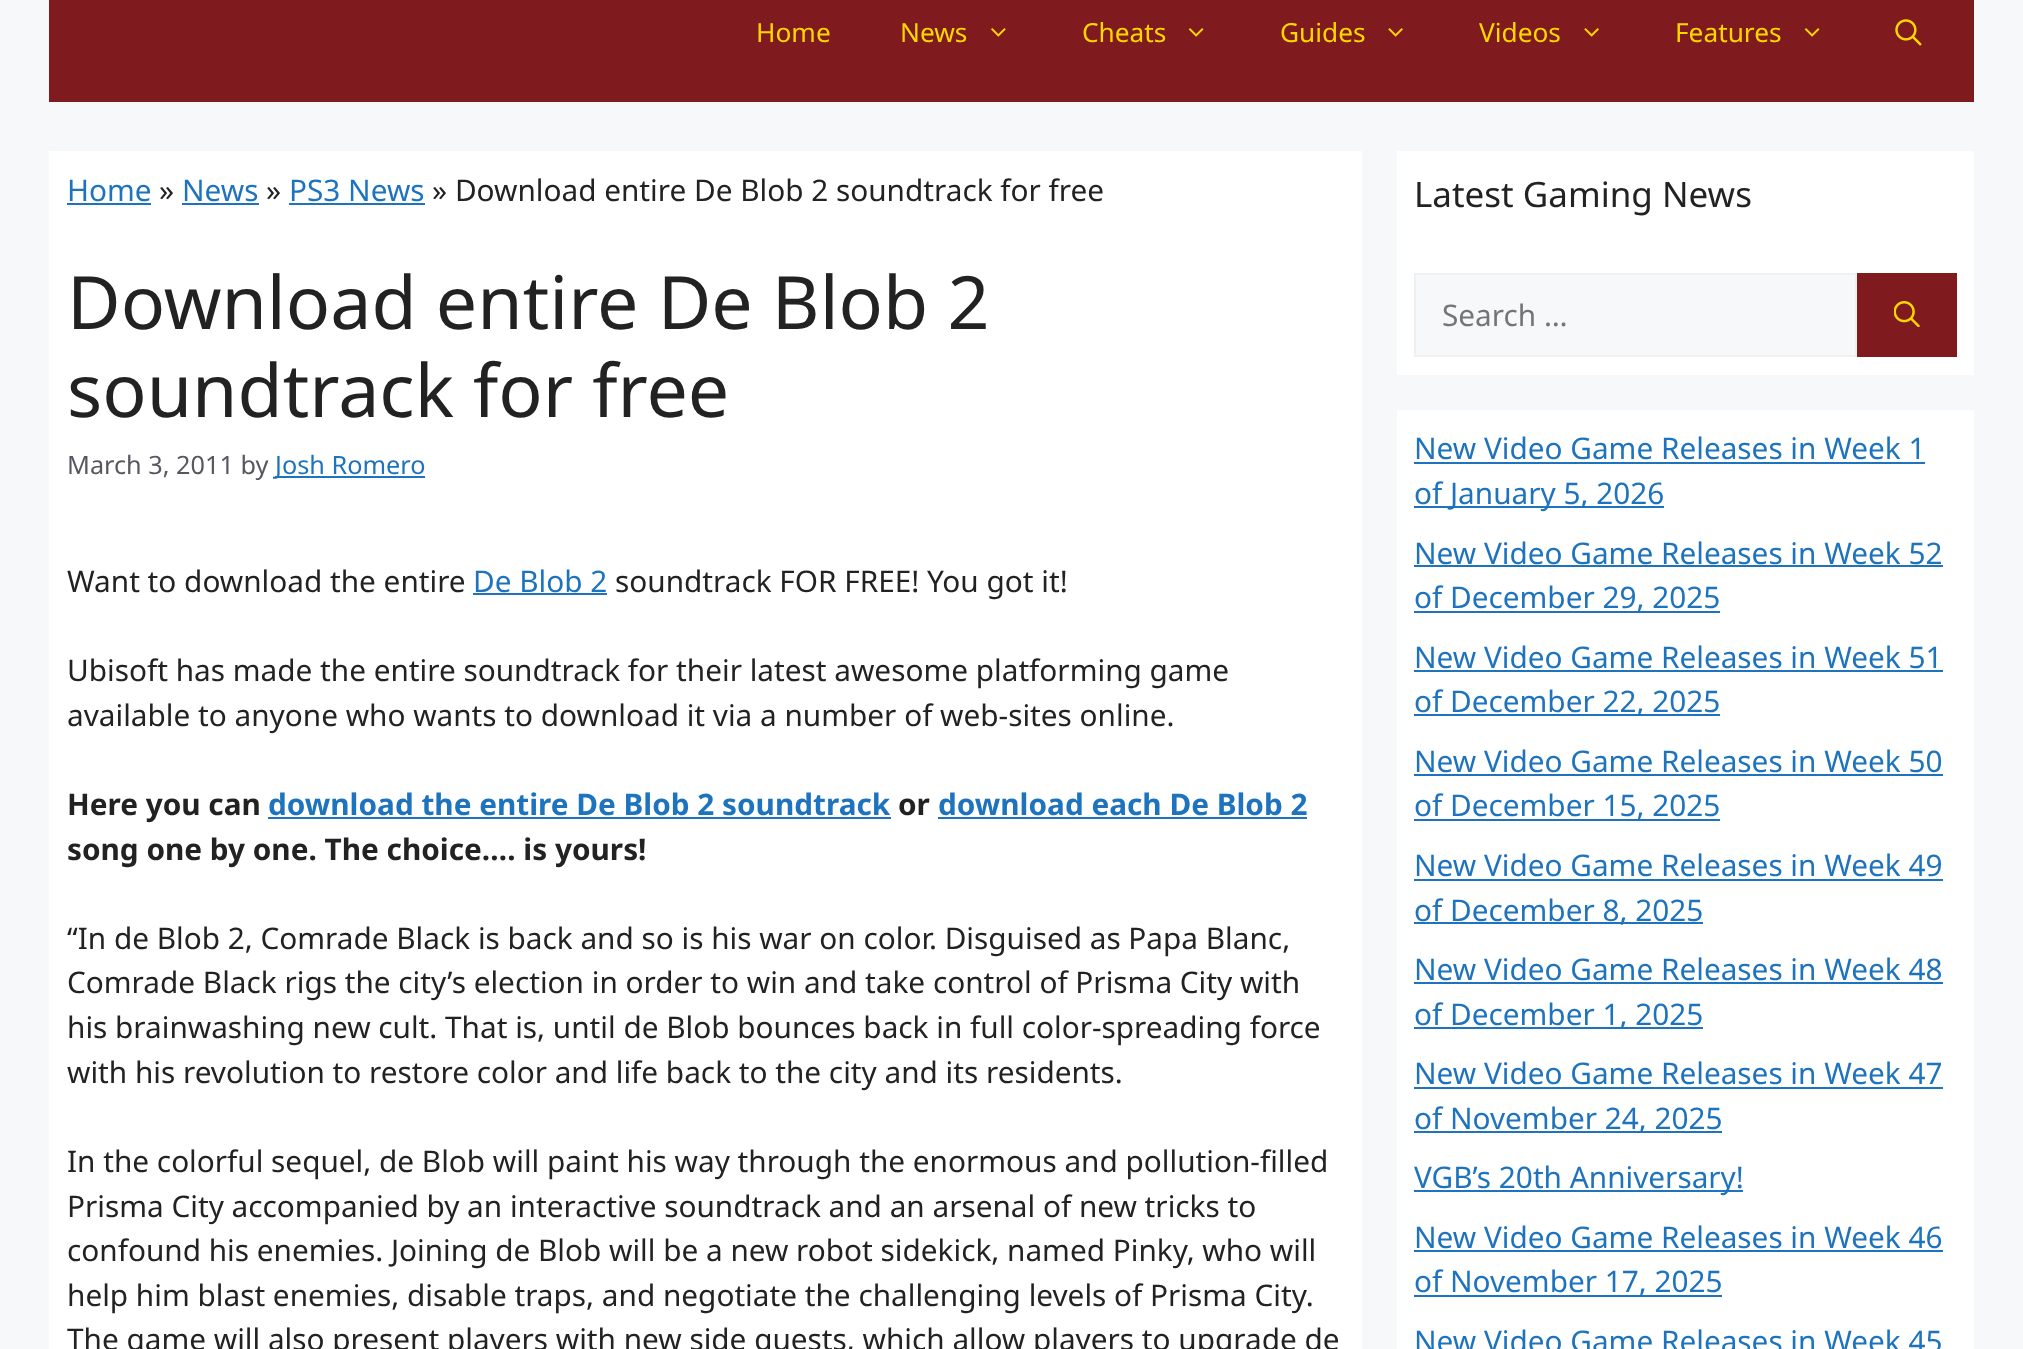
<!DOCTYPE html>
<meta charset="utf-8">
<style>body { margin: 0 } canvas { display: block }</style>
<canvas id="canvas" width="2023" height="1349"></canvas>
<script type="module">
  const canvas = document.getElementById("canvas");
  const g = canvas.getContext("2d");
  g.miterLimit = 4;
  g.fontKerning = "normal";
  function drawText(s, x, y, [font, color]) {
    g.font = font;
    g.fillStyle = color;
    g.fillText(s, x, y);
  }
  function fillBox(x, y, w, h, color) {
    g.fillStyle = color;
    g.fillRect(x, y, w, h);
  }
  async function drawPicture(src, x, y, w, h) {
    const img = new Image();
    img.src = src;
    await img.decode();
    g.drawImage(img, x, y, w, h);
  }

  const s1 = ["26.25px Noto Sans", "#FFD700"];
  const s2 = ["29.75px Noto Sans", "#1E73BE"];
  const s3 = ["29.75px Noto Sans", "#222222"];
  const s4 = ["73.5px Noto Sans", "#222222"];
  const s5 = ["25.25px Noto Sans", "#575760"];
  const s6 = ["25.25px Noto Sans", "#1E73BE"];
  const s7 = ["bold 29.75px Noto Sans", "#222222"];
  const s8 = ["bold 29.75px Noto Sans", "#1E73BE"];
  const s9 = ["35px Noto Sans", "#222222"];
  const s10 = ["29.75px Noto Sans", "#757575"];

  fillBox(0, 0, 2023, 1349, "#F7F8F9");
  fillBox(49, 0, 1925, 102, "#7F1A1E");
  drawText("Home", 756, 42, s1);
  drawText("News", 900, 42, s1);
  await drawPicture("pic1.png", 991, 28, 15, 9);
  drawText("Cheats", 1082, 42, s1);
  await drawPicture("pic2.png", 1188, 28, 16, 9);
  drawText("Guides", 1280, 42, s1);
  await drawPicture("pic3.png", 1388, 28, 15, 9);
  drawText("Videos", 1479, 42, s1);
  await drawPicture("pic3.png", 1584, 28, 15, 9);
  drawText("Features", 1675, 42, s1);
  await drawPicture("pic2.png", 1804, 28, 16, 9);
  await drawPicture("pic4.png", 1895, 19, 27, 27);
  fillBox(49, 151, 1313, 1198, "#FFFFFF");
  drawText("Home", 67, 201, s2);
  fillBox(67, 203, 84, 2, "#1E73BE");
  drawText("»", 159, 201, s3);
  drawText("News", 182, 201, s2);
  fillBox(182, 203, 77, 2, "#1E73BE");
  drawText("»", 266, 201, s3);
  drawText("PS3 News", 289, 201, s2);
  fillBox(289, 203, 136, 2, "#1E73BE");
  drawText("» Download entire De Blob 2 soundtrack for free", 432, 201, s3);
  drawText("Download entire De Blob 2", 67, 329, s4);
  drawText("soundtrack for free", 67, 417, s4);
  drawText("March 3, 2011 by", 67, 474, s5);
  fillBox(275, 476, 150, 2, "#1E73BE");
  drawText("Josh Romero", 275, 474, s6);
  drawText("Want to download the entire", 67, 592, s3);
  drawText("De Blob 2", 473, 592, s2);
  fillBox(473, 593, 134, 2, "#1E73BE");
  drawText("soundtrack FOR FREE! You got it!", 615, 592, s3);
  drawText("Ubisoft has made the entire soundtrack for their latest awesome platforming game", 67, 681, s3);
  drawText("available to anyone who wants to download it via a number of web-sites online.", 67, 726, s3);
  drawText("Here you can", 67, 815, s7);
  drawText("download the entire De Blob 2 soundtrack", 268, 815, s8);
  fillBox(268, 817, 623, 2, "#1E73BE");
  drawText("or", 898, 815, s7);
  drawText("download each De Blob 2", 938, 815, s8);
  fillBox(938, 817, 369, 2, "#1E73BE");
  drawText("song one by one. The choice…. is yours!", 67, 860, s7);
  drawText("“In de Blob 2, Comrade Black is back and so is his war on color. Disguised as Papa Blanc,", 67, 949, s3);
  drawText("Comrade Black rigs the city’s election in order to win and take control of Prisma City with", 67, 993, s3);
  drawText("his brainwashing new cult. That is, until de Blob bounces back in full color-spreading force", 67, 1038, s3);
  drawText("with his revolution to restore color and life back to the city and its residents.", 67, 1083, s3);
  drawText("In the colorful sequel, de Blob will paint his way through the enormous and pollution-filled", 67, 1172, s3);
  drawText("Prisma City accompanied by an interactive soundtrack and an arsenal of new tricks to", 67, 1217, s3);
  drawText("confound his enemies. Joining de Blob will be a new robot sidekick, named Pinky, who will", 67, 1261, s3);
  drawText("help him blast enemies, disable traps, and negotiate the challenging levels of Prisma City.", 67, 1306, s3);
  drawText("The game will also present players with new side quests, which allow players to upgrade de", 67, 1350, s3);
  fillBox(1397, 151, 577, 224, "#FFFFFF");
  drawText("Latest Gaming News", 1414, 207, s9);
  g.fillStyle = "#F7F8F9";
  g.beginPath();
  g.rect(1415, 274, 441, 82);
  g.fill();
  g.strokeStyle = "#F0F0F0";
  g.lineWidth = 2;
  g.stroke();
  drawText("Search …", 1442, 326, s10);
  fillBox(1857, 273, 100, 84, "#7F1A1E");
  await drawPicture("pic5.png", 1894, 301, 26, 26);
  fillBox(1397, 410, 577, 939, "#FFFFFF");
  drawText("New Video Game Releases in Week 1", 1414, 459, s2);
  fillBox(1414, 462, 511, 2, "#1E73BE");
  fillBox(1414, 506, 250, 2, "#1E73BE");
  drawText("of January 5, 2026", 1414, 504, s2);
  drawText("New Video Game Releases in Week 52", 1414, 564, s2);
  fillBox(1414, 565, 529, 2, "#1E73BE");
  fillBox(1414, 611, 306, 2, "#1E73BE");
  drawText("of December 29, 2025", 1414, 608, s2);
  drawText("New Video Game Releases in Week 51", 1414, 668, s2);
  fillBox(1414, 670, 529, 2, "#1E73BE");
  fillBox(1414, 714, 306, 2, "#1E73BE");
  drawText("of December 22, 2025", 1414, 712, s2);
  drawText("New Video Game Releases in Week 50", 1414, 772, s2);
  fillBox(1414, 774, 529, 2, "#1E73BE");
  fillBox(1414, 819, 306, 2, "#1E73BE");
  drawText("of December 15, 2025", 1414, 816, s2);
  drawText("New Video Game Releases in Week 49", 1414, 876, s2);
  fillBox(1414, 879, 529, 2, "#1E73BE");
  fillBox(1414, 922, 289, 2, "#1E73BE");
  drawText("of December 8, 2025", 1414, 921, s2);
  drawText("New Video Game Releases in Week 48", 1414, 980, s2);
  fillBox(1414, 982, 529, 2, "#1E73BE");
  fillBox(1414, 1027, 289, 2, "#1E73BE");
  drawText("of December 1, 2025", 1414, 1025, s2);
  drawText("New Video Game Releases in Week 47", 1414, 1084, s2);
  fillBox(1414, 1087, 529, 2, "#1E73BE");
  fillBox(1414, 1131, 308, 2, "#1E73BE");
  drawText("of November 24, 2025", 1414, 1129, s2);
  fillBox(1414, 1190, 329, 2, "#1E73BE");
  drawText("VGB’s 20th Anniversary!", 1414, 1188, s2);
  drawText("New Video Game Releases in Week 46", 1414, 1248, s2);
  fillBox(1414, 1250, 529, 2, "#1E73BE");
  fillBox(1414, 1295, 308, 2, "#1E73BE");
  drawText("of November 17, 2025", 1414, 1292, s2);
  drawText("New Video Game Releases in Week 45", 1414, 1352, s2);
</script>
